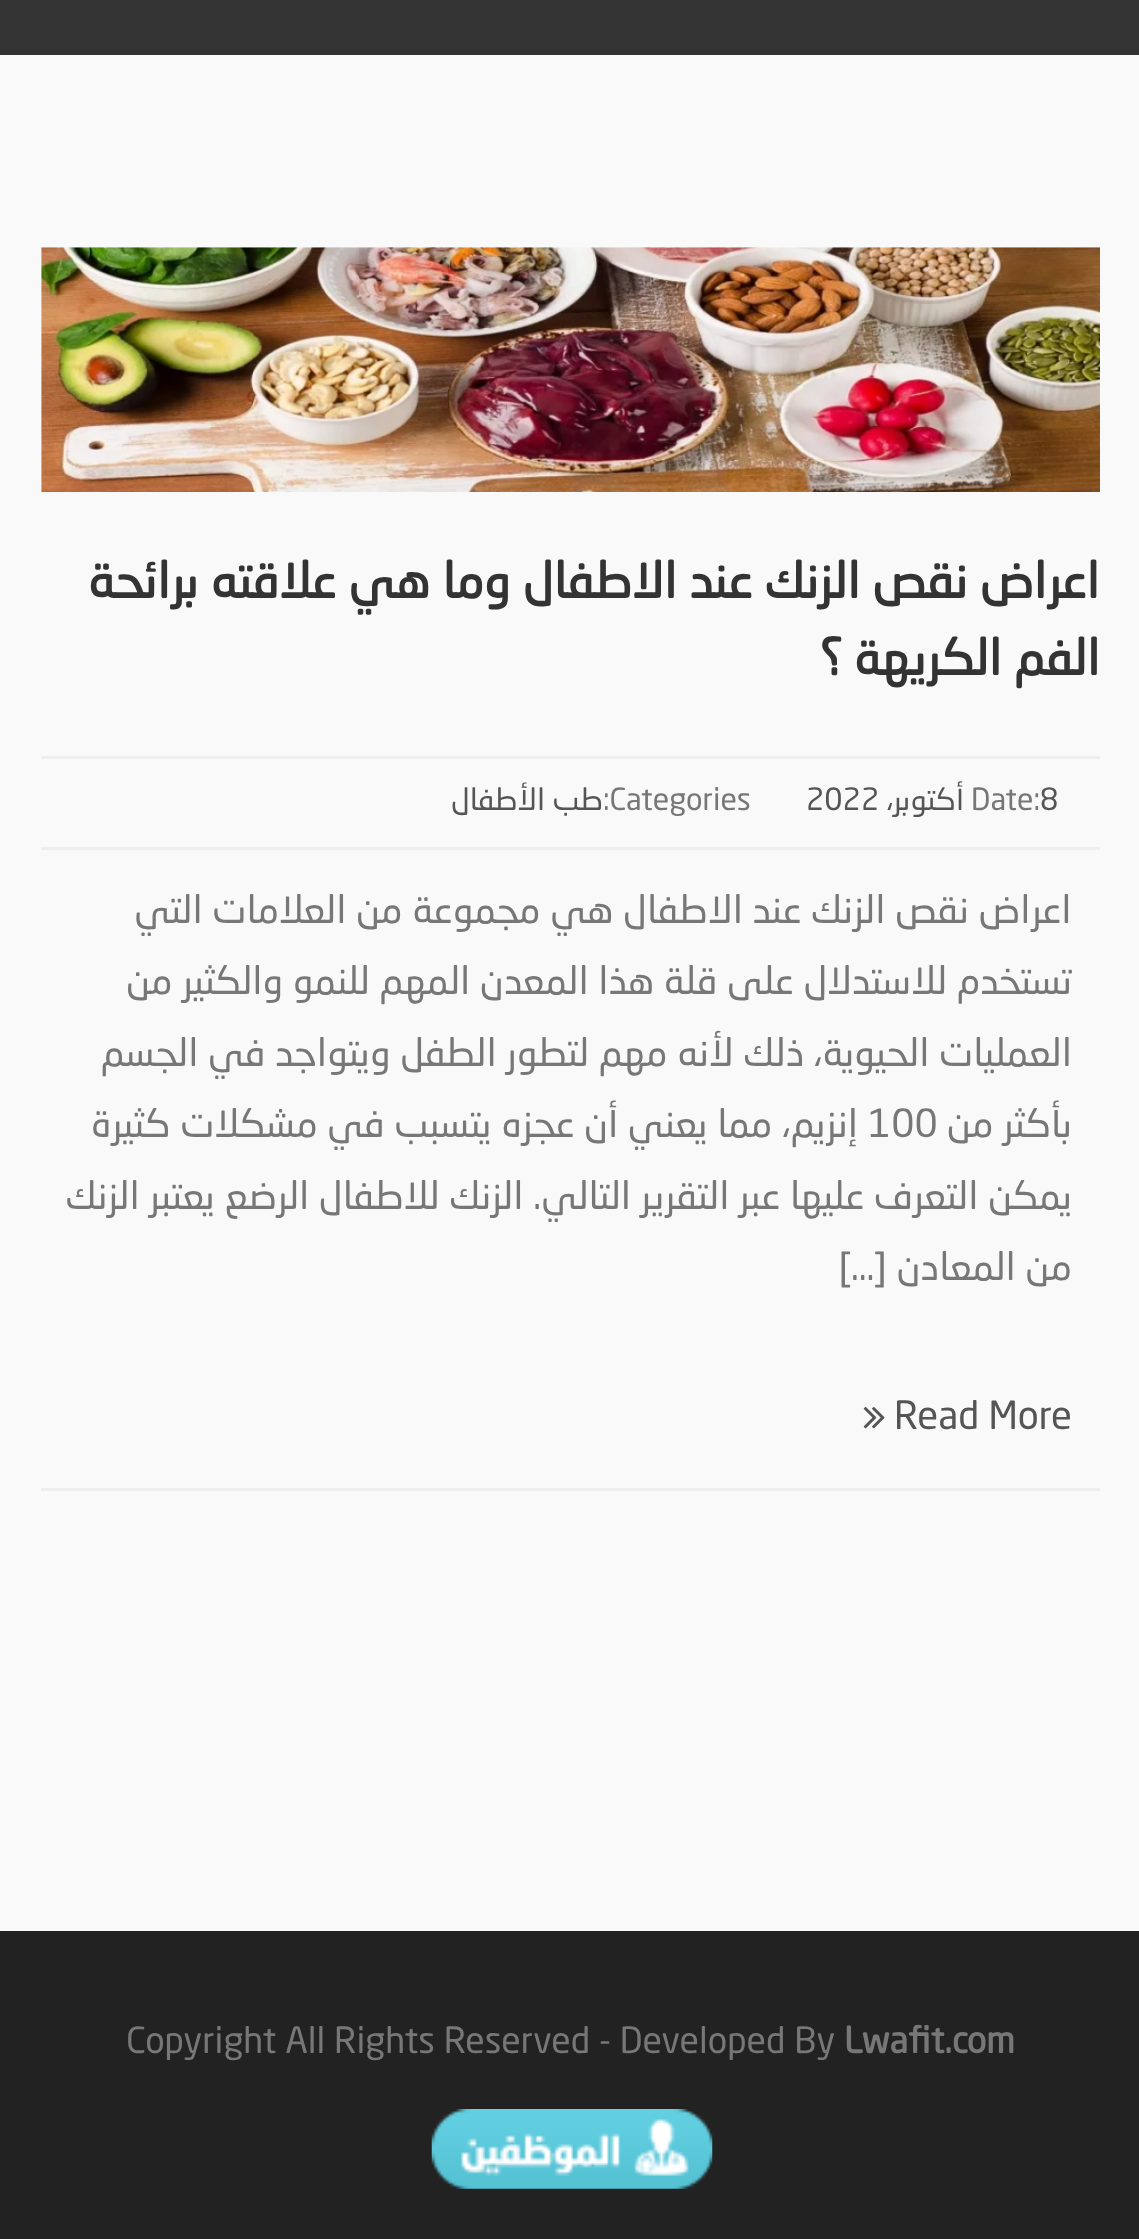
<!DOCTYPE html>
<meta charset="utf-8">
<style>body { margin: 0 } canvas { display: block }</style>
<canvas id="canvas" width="1139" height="2239"></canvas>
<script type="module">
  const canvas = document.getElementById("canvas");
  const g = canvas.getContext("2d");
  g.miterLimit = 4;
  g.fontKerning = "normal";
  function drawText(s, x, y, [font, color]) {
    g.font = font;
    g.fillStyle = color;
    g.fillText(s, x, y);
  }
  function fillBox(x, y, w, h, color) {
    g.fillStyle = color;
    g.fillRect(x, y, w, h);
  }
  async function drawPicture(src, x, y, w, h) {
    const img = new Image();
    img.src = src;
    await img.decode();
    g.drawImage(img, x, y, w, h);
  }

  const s1 = ["bold 49.5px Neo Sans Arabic", "#333333"];
  const s2 = ["30.25px Neo Sans Arabic", "#555555"];
  const s3 = ["30.25px Neo Sans Arabic", "#777777"];
  const s4 = ["38.5px Neo Sans Arabic", "#777777"];
  const s5 = ["38.5px Neo Sans Arabic", "#555555"];
  const s6 = ["bold 35.75px Neo Sans Arabic", "#777777"];
  const s7 = ["35.75px Neo Sans Arabic", "#777777"];

  fillBox(0, 0, 1139, 2239, "#F9F9F9");
  fillBox(0, 0, 1139, 55, "#333333");
  fillBox(41, 1488, 1059, 3, "#EEEEEE");
  await drawPicture("pic1.png", 41, 247, 1059, 245);
  g.direction = "rtl";
  drawText("اعراض نقص الزنك عند الاطفال وما هي علاقته برائحة", 1100, 598, s1);
  drawText("الفم الكريهة ؟", 1100, 675, s1);
  fillBox(41, 756, 1059, 3, "#EEEEEE");
  fillBox(41, 847, 1059, 3, "#EEEEEE");
  g.direction = "ltr";
  drawText("8", 1040, 810, s2);
  drawText("Date:", 971, 810, s3);
  g.direction = "rtl";
  drawText("أكتوبر،", 964, 810, s2);
  g.direction = "ltr";
  drawText("2022", 806, 810, s2);
  drawText(":Categories", 603, 810, s3);
  g.direction = "rtl";
  drawText("طب الأطفال", 603, 810, s2);
  drawText("اعراض نقص الزنك عند الاطفال هي مجموعة من العلامات التي", 1072, 923, s4);
  drawText("تستخدم للاستدلال على قلة هذا المعدن المهم للنمو والكثير من", 1072, 994, s4);
  drawText("العمليات الحيوية، ذلك لأنه مهم لتطور الطفل ويتواجد في الجسم", 1072, 1066, s4);
  drawText("بأكثر من", 1072, 1137, s4);
  g.direction = "ltr";
  drawText("100", 868, 1137, s4);
  g.direction = "rtl";
  drawText("إنزيم، مما يعني أن عجزه يتسبب في مشكلات كثيرة", 858, 1137, s4);
  drawText("يمكن التعرف عليها عبر التقرير التالي. الزنك للاطفال الرضع يعتبر الزنك", 1072, 1209, s4);
  drawText("من المعادن […]", 1072, 1280, s4);
  g.direction = "ltr";
  drawText("Read More", 894, 1429, s5);
  await drawPicture("pic2.png", 863, 1407, 22, 22);
  fillBox(0, 1931, 1139, 308, "#222222");
  drawText("Lwafit.com", 844, 2053, s6);
  drawText("Copyright All Rights Reserved - Developed By", 126, 2053, s7);
  await drawPicture("pic3.png", 431, 2109, 282, 80);
</script>
